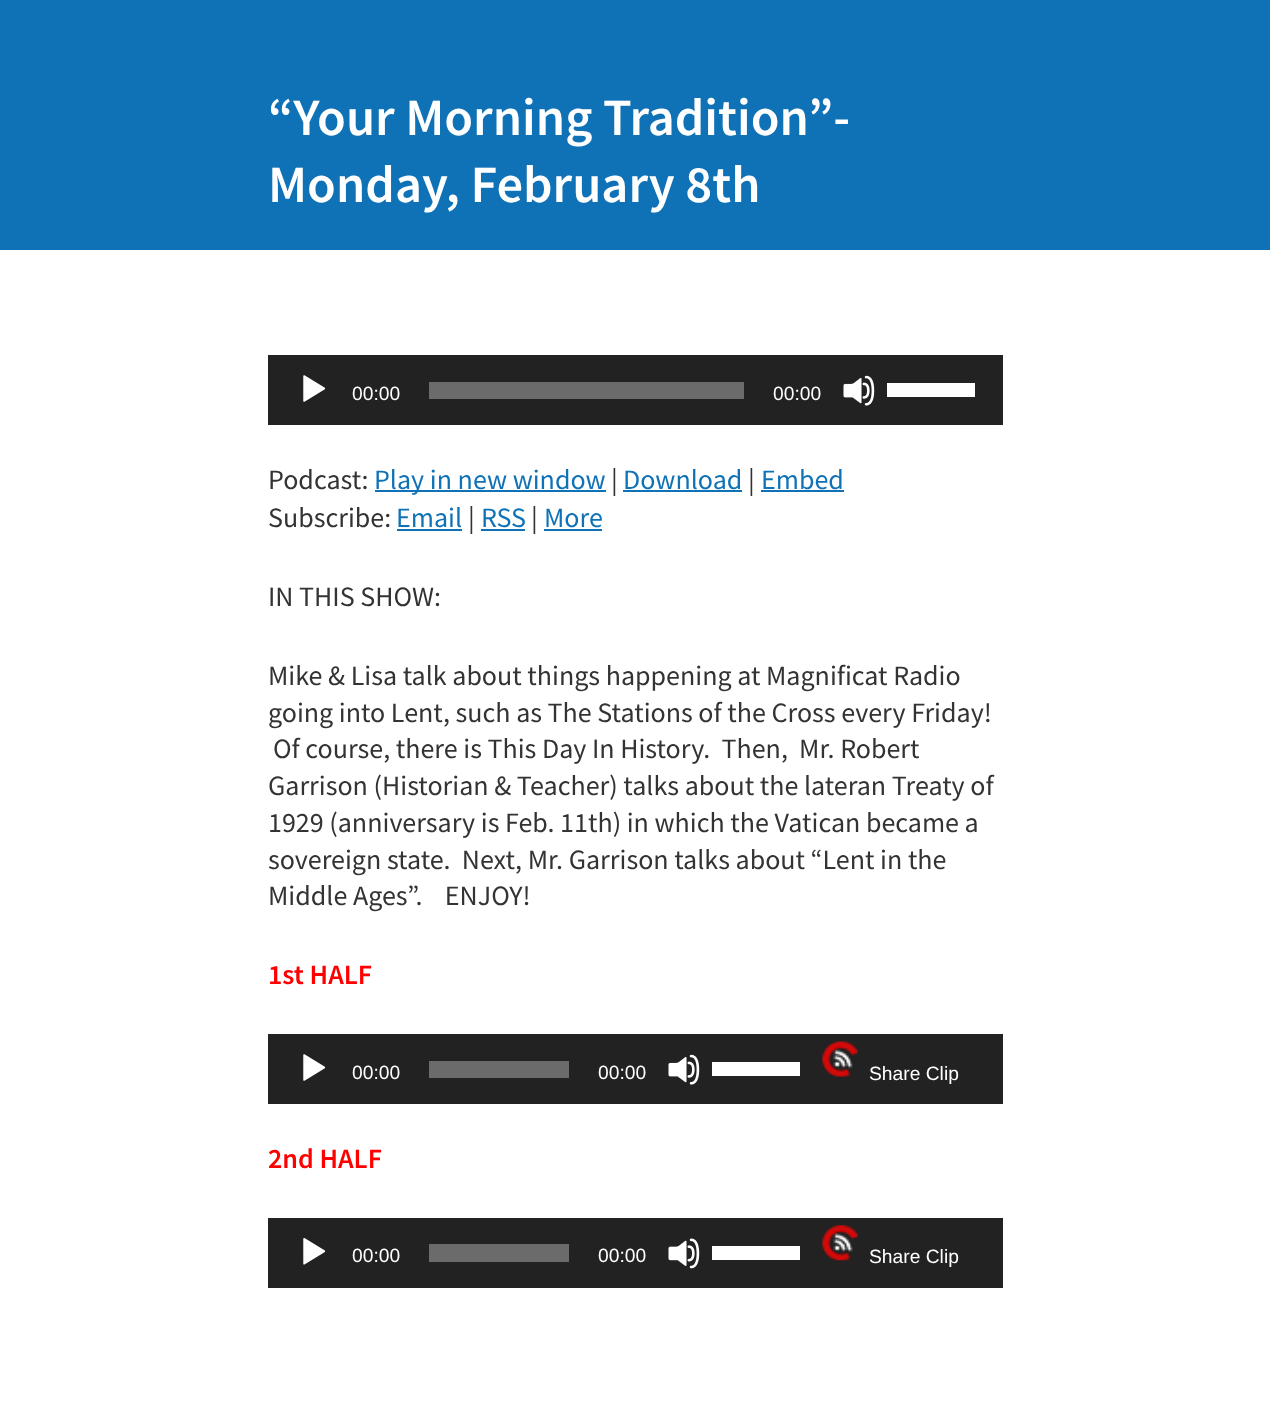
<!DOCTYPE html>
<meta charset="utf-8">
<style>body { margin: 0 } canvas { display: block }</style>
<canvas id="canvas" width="1270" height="1418"></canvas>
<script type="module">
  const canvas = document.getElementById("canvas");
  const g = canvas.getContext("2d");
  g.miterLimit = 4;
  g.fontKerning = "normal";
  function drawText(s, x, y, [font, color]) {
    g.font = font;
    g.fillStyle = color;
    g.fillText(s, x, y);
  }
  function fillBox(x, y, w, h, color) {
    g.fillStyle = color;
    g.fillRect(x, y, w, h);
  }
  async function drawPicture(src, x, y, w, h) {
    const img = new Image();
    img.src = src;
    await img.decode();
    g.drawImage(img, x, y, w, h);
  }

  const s1 = ["600 52.5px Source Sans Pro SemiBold", "#FFFFFF"];
  const s2 = ["19.25px Liberation Sans", "#FFFFFF"];
  const s3 = ["28px Source Sans Pro", "#333333"];
  const s4 = ["28px Source Sans Pro", "#1072B6"];
  const s5 = ["600 28px Source Sans Pro SemiBold", "#FF0000"];

  fillBox(0, 0, 1270, 1418, "#FFFFFF");
  fillBox(0, 0, 1270, 250, "#1072B6");
  drawText("“Your Morning Tradition”-", 268, 135, s1);
  drawText("Monday, February 8th", 268, 202, s1);
  fillBox(268, 355, 735, 70, "#222222");
  await drawPicture("pic1.png", 303, 375, 23, 27);
  drawText("00:00", 352, 400, s2);
  fillBox(429, 382, 315, 17, "#6B6B6B");
  drawText("00:00", 773, 400, s2);
  await drawPicture("pic2.png", 843, 375, 32, 31);
  fillBox(887, 383, 88, 14, "#FFFFFF");
  drawText("Podcast:", 268, 489, s3);
  fillBox(375, 490, 231, 2, "#1072B6");
  drawText("Play in new window", 374, 489, s4);
  drawText("|", 611, 489, s3);
  drawText("Download", 623, 489, s4);
  fillBox(623, 490, 119, 2, "#1072B6");
  drawText("|", 748, 489, s3);
  drawText("Embed", 761, 489, s4);
  fillBox(761, 490, 83, 2, "#1072B6");
  drawText("Subscribe:", 268, 527, s3);
  drawText("Email", 396, 527, s4);
  fillBox(397, 529, 65, 2, "#1072B6");
  drawText("|", 468, 527, s3);
  drawText("RSS", 481, 527, s4);
  fillBox(481, 529, 44, 2, "#1072B6");
  drawText("|", 531, 527, s3);
  drawText("More", 544, 527, s4);
  fillBox(544, 529, 58, 2, "#1072B6");
  drawText("IN THIS SHOW:", 268, 606, s3);
  drawText("Mike & Lisa talk about things happening at Magnificat Radio", 268, 685, s3);
  drawText("going into Lent, such as The Stations of the Cross every Friday!", 268, 722, s3);
  drawText("Of course, there is This Day In History.  Then,  Mr. Robert", 273, 758, s3);
  drawText("Garrison (Historian & Teacher) talks about the lateran Treaty of", 268, 795, s3);
  drawText("1929 (anniversary is Feb. 11th) in which the Vatican became a", 268, 832, s3);
  drawText("sovereign state.  Next, Mr. Garrison talks about “Lent in the", 268, 869, s3);
  drawText("Middle Ages”.    ENJOY!", 268, 905, s3);
  drawText("1st HALF", 268, 984, s5);
  fillBox(268, 1034, 735, 70, "#222222");
  await drawPicture("pic1.png", 303, 1054, 23, 27);
  drawText("00:00", 352, 1079, s2);
  fillBox(429, 1061, 140, 17, "#6B6B6B");
  drawText("00:00", 598, 1079, s2);
  await drawPicture("pic2.png", 668, 1054, 32, 31);
  fillBox(712, 1062, 88, 14, "#FFFFFF");
  await drawPicture("pic3.png", 822, 1041, 36, 36);
  drawText("Share Clip", 869, 1080, s2);
  drawText("2nd HALF", 268, 1168, s5);
  fillBox(268, 1218, 735, 70, "#222222");
  await drawPicture("pic4.png", 303, 1238, 23, 27);
  drawText("00:00", 352, 1262, s2);
  fillBox(429, 1244, 140, 18, "#6B6B6B");
  drawText("00:00", 598, 1262, s2);
  await drawPicture("pic5.png", 668, 1238, 32, 31);
  fillBox(712, 1246, 88, 14, "#FFFFFF");
  await drawPicture("pic6.png", 822, 1225, 36, 36);
  drawText("Share Clip", 869, 1263, s2);
</script>
